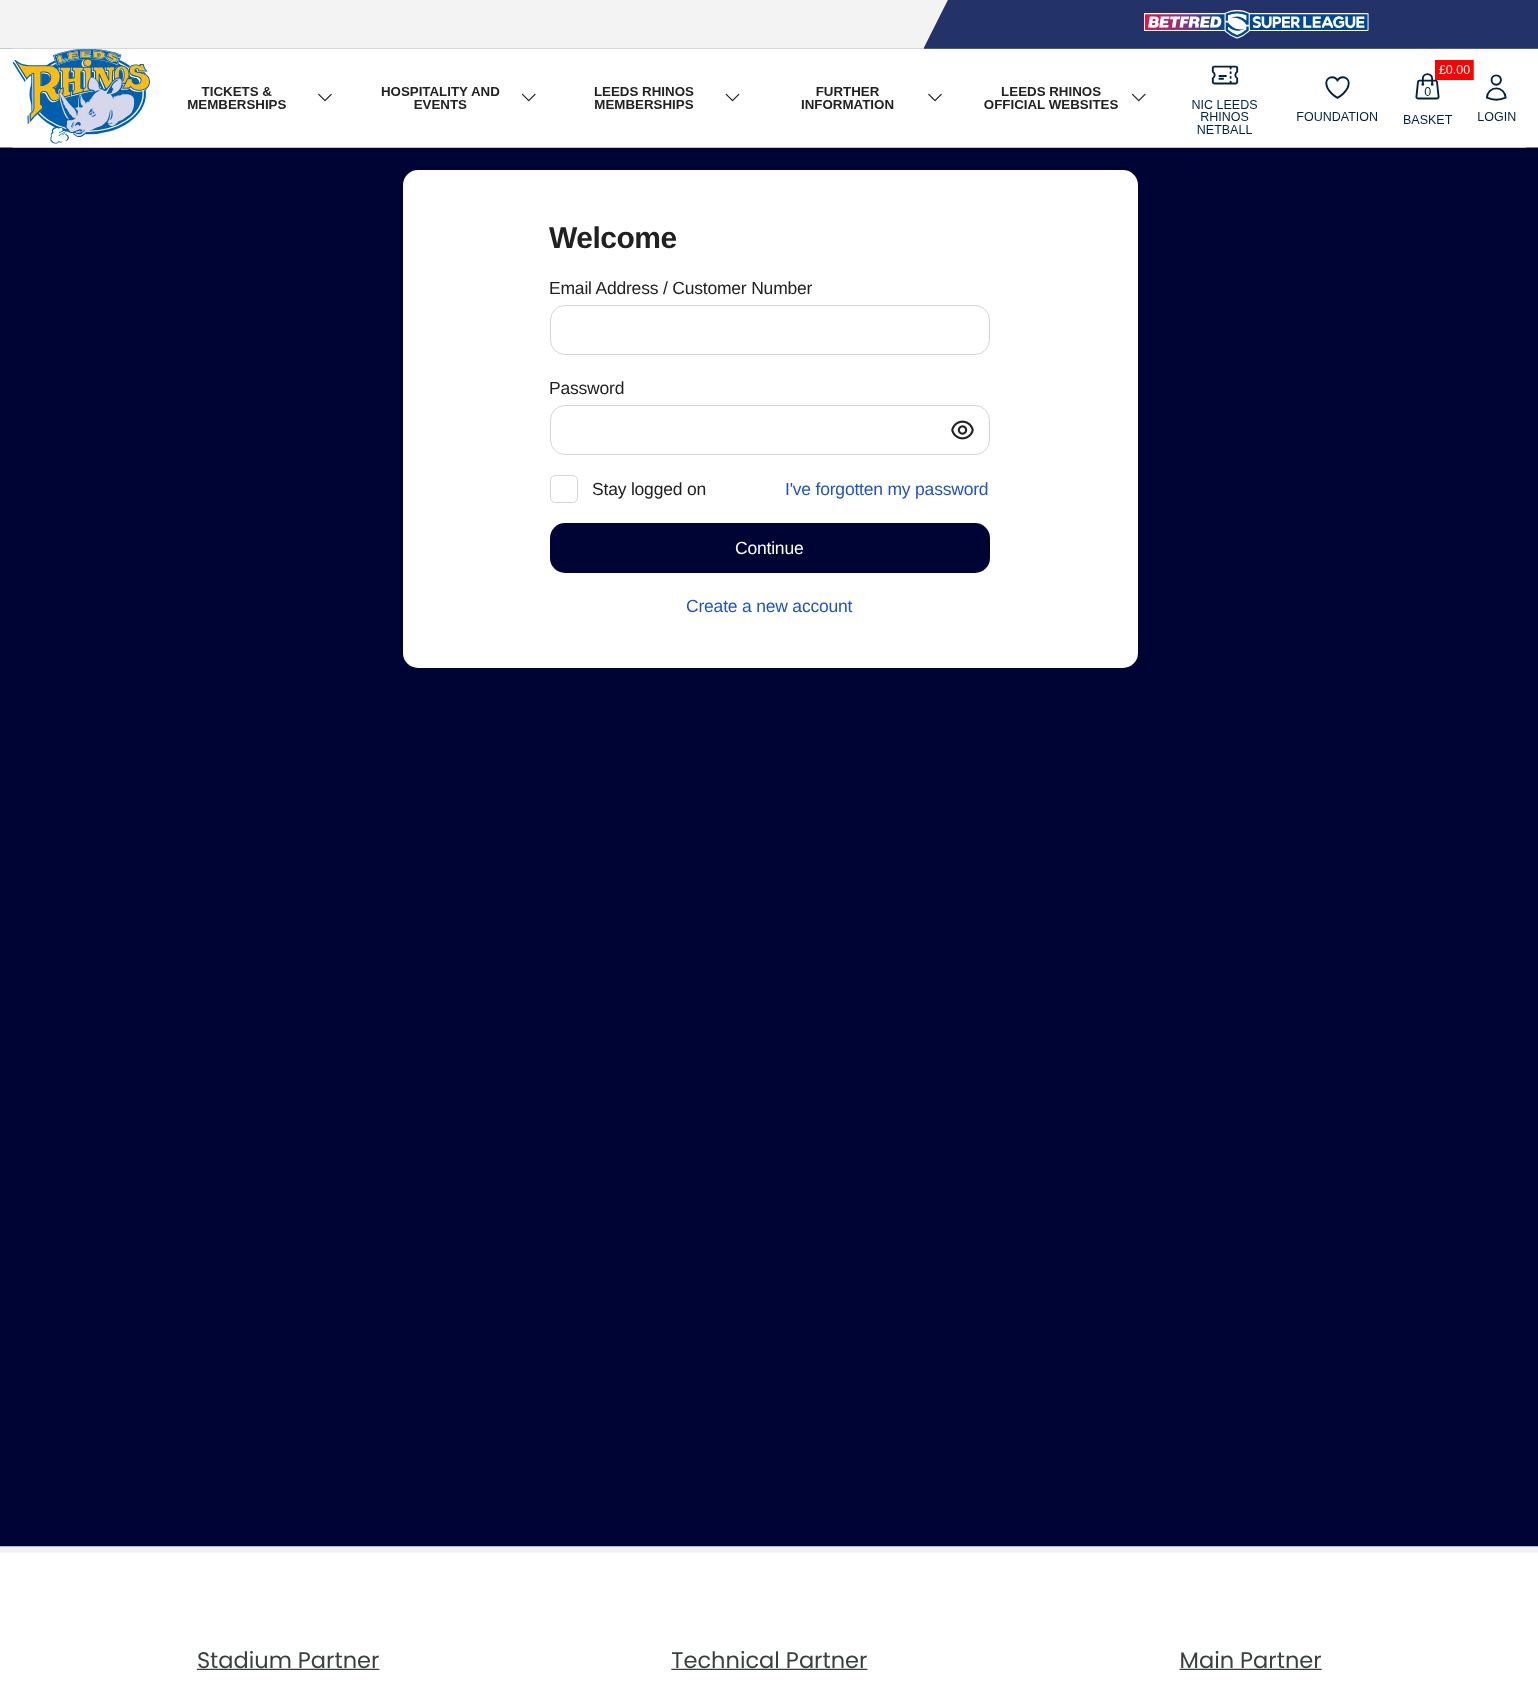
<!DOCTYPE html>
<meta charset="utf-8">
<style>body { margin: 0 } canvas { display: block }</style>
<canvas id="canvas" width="1538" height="1696"></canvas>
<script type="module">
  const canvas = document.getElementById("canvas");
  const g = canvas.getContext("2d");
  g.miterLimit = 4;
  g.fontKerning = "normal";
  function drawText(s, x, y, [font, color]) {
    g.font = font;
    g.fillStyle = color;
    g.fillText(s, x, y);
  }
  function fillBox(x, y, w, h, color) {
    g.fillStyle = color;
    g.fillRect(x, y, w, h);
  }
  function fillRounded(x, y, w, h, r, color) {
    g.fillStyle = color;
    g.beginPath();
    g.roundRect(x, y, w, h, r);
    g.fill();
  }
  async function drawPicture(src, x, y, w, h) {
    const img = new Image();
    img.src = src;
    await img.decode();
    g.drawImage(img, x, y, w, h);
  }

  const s1 = ["bold 30px Liberation Sans", "#212121"];
  const s2 = ["17.5px Liberation Sans", "#212121"];
  const s3 = ["17.5px Liberation Sans", "#1F54C8"];
  const s4 = ["17.5px Liberation Sans", "#FFFFFF"];

  fillBox(0, 0, 1538, 1696, "#000435");
  await drawPicture("pic1.png", 0, 0, 1538, 148);
  fillRounded(403, 170, 735, 498, 15, "#FFFFFF");
  g.letterSpacing = "-0.5px";
  drawText("Welcome", 549, 248, s1);
  g.letterSpacing = "-0.2px";
  drawText("Email Address / Customer Number", 549, 294, s2);
  g.beginPath();
  g.roundRect(550.5, 305.5, 439, 49, 14.5);
  g.strokeStyle = "#D5D5D9";
  g.stroke();
  drawText("Password", 549, 394, s2);
  g.beginPath();
  g.roundRect(550.5, 405.5, 439, 49, 14.5);
  g.stroke();
  await drawPicture("pic2.png", 951, 420, 23, 20);
  g.beginPath();
  g.roundRect(550.5, 475.5, 27, 27, 4.5);
  g.stroke();
  drawText("Stay logged on", 592, 495, s2);
  drawText("I've forgotten my password", 785, 495, s3);
  fillRounded(550, 523, 440, 50, 15, "#000435");
  drawText("Continue", 735, 554, s4);
  drawText("Create a new account", 686, 612, s3);
  await drawPicture("pic3.png", 0, 1546, 1538, 150);
</script>
